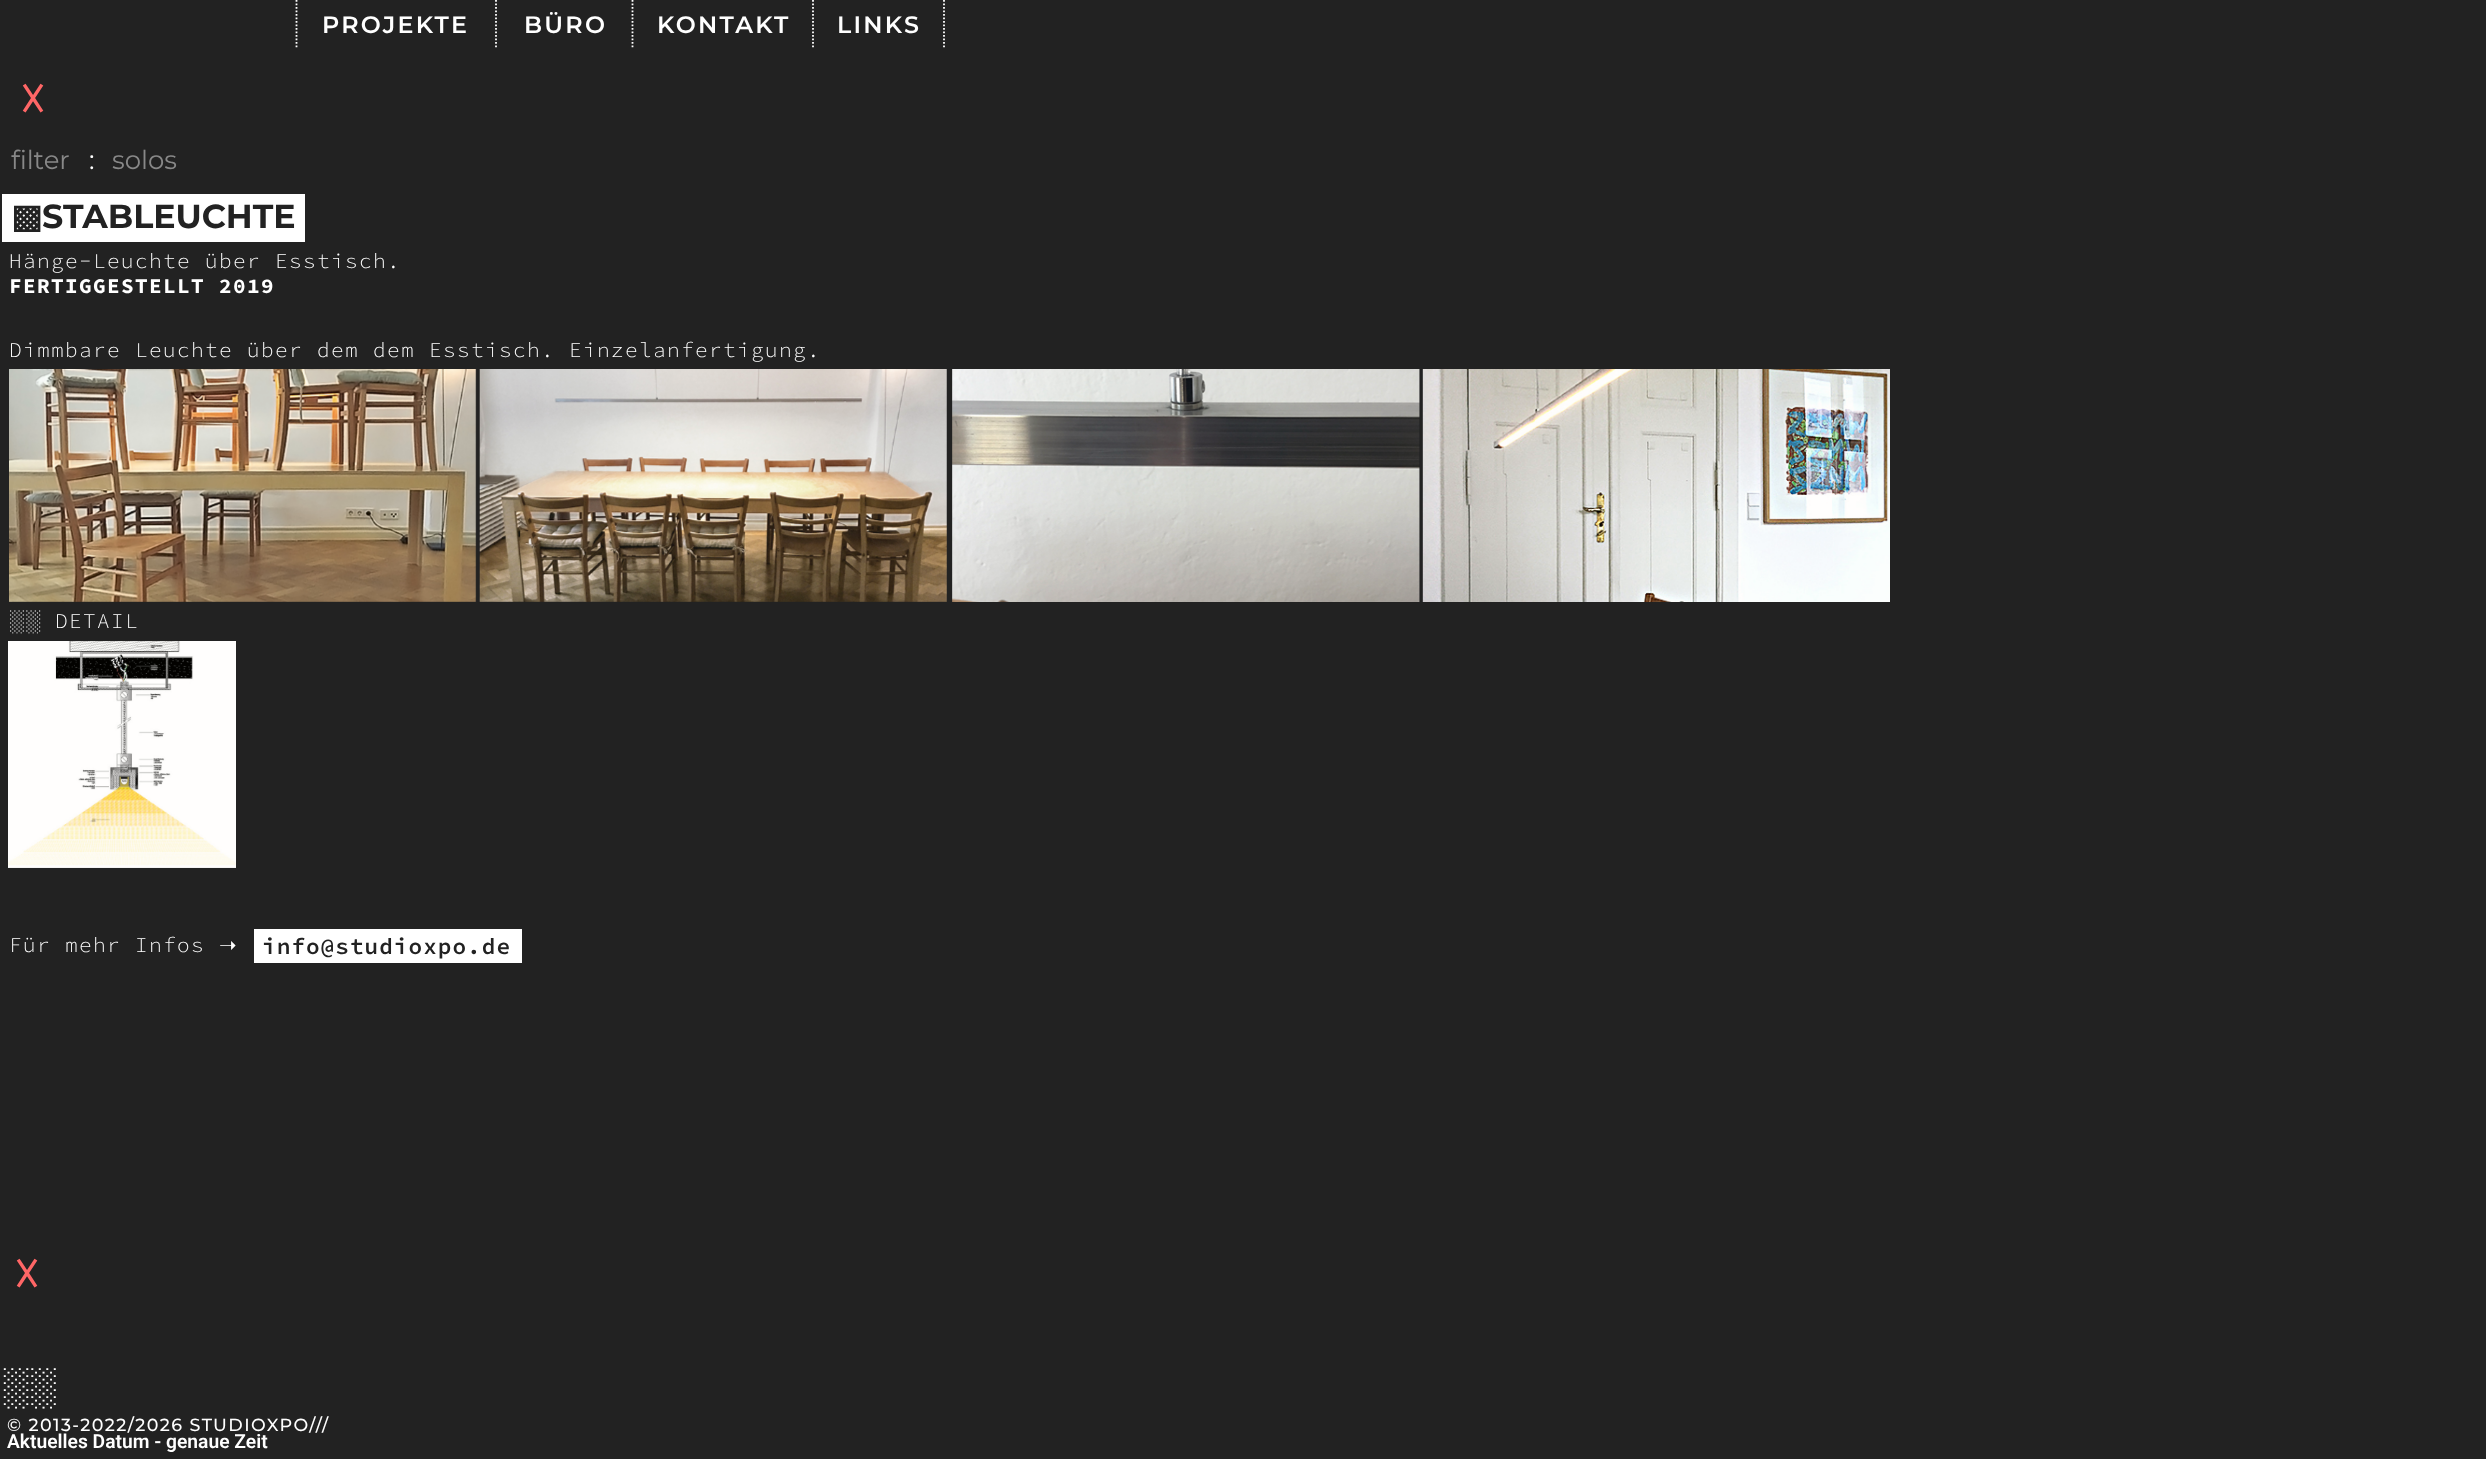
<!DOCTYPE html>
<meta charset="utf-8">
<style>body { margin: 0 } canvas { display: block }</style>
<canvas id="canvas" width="2486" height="1459"></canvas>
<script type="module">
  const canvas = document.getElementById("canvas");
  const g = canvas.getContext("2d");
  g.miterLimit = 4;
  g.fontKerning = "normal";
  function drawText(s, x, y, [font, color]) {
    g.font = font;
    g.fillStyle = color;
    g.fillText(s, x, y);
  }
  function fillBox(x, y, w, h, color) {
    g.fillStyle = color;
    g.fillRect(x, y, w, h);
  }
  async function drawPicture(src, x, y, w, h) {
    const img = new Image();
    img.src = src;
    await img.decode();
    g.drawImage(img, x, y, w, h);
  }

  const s1 = ["600 23.75px Montserrat", "#FFFFFF"];
  const s2 = ["38px DejaVu Sans", "#FF6666"];
  const s3 = ["26px Montserrat", "#888888"];
  const s4 = ["26px Montserrat", "#FFFFFF"];
  const s5 = ["bold 33.25px DejaVu Sans", "#222222"];
  const s6 = ["bold 33.25px Montserrat", "#222222"];
  const s7 = ["300 21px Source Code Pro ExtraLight", "#FFFFFF"];
  const s8 = ["bold 21px Source Code Pro ExtraLight", "#FFFFFF"];
  const s9 = ["21px Liberation Serif", "#FFFFFF"];
  const s10 = ["21px DejaVu Sans", "#FFFFFF"];
  const s11 = ["600 22.75px Source Code Pro ExtraLight", "#222222"];
  const s12 = ["bold 37px Liberation Serif", "#FFFFFF"];
  const s13 = ["500 17.5px Montserrat", "#FFFFFF"];
  const s14 = ["600 19.25px Roboto", "#FFFFFF"];

  fillBox(0, 0, 2486, 1459, "#222222");
  g.beginPath();
  g.moveTo(296.5, 0);
  g.lineTo(296.5, 49);
  g.strokeStyle = "#FFFFFF";
  g.lineWidth = 1.8;
  g.setLineDash([1.75, 1.75]);
  g.stroke();
  g.letterSpacing = "2.25px";
  drawText("PROJEKTE", 322, 33, s1);
  g.beginPath();
  g.moveTo(496, 0);
  g.lineTo(496, 49);
  g.stroke();
  drawText("BÜRO", 524, 33, s1);
  g.beginPath();
  g.moveTo(632.5, 0);
  g.lineTo(632.5, 49);
  g.stroke();
  drawText("KONTAKT", 657, 33, s1);
  g.beginPath();
  g.moveTo(944, 0);
  g.lineTo(944, 49);
  g.stroke();
  g.beginPath();
  g.moveTo(813, 0);
  g.lineTo(813, 49);
  g.stroke();
  drawText("LINKS", 837, 33, s1);
  g.letterSpacing = "0px";
  drawText("𐌗", 20, 112, s2);
  drawText("filter", 11, 169, s3);
  drawText(":", 89, 169, s4);
  drawText("solos", 112, 169, s3);
  fillBox(2, 194, 303, 48, "#FFFFFF");
  drawText("▩", 11, 228, s5);
  drawText("STABLEUCHTE", 42, 228, s6);
  g.letterSpacing = "1.4px";
  drawText("Hänge-Leuchte über Esstisch.", 9, 268, s7);
  drawText("FERTIGGESTELLT 2019", 9, 293, s8);
  drawText("Dimmbare Leuchte über dem dem Esstisch. Einzelanfertigung.", 9, 357, s7);
  await drawPicture("pic1.png", 9, 369, 468, 233);
  await drawPicture("pic2.png", 479, 369, 468, 233);
  await drawPicture("pic3.png", 952, 369, 468, 233);
  await drawPicture("pic4.png", 1422, 369, 468, 233);
  drawText("░░", 9, 628, s9);
  drawText("DETAIL", 55, 628, s7);
  await drawPicture("pic5.png", 8, 641, 228, 227);
  drawText("Für mehr Infos", 9, 952, s7);
  drawText("➝", 219, 952, s10);
  fillBox(254, 929, 268, 34, "#FFFFFF");
  g.letterSpacing = "1px";
  drawText("info@studioxpo.de", 262, 954, s11);
  g.letterSpacing = "0px";
  drawText("𐌗", 14, 1287, s2);
  g.letterSpacing = "1.4px";
  drawText("░░", 2, 1399, s12);
  drawText("© 2013-2022/2026 STUDIOXPO///", 7, 1431, s13);
  g.letterSpacing = "0px";
  drawText("Aktuelles Datum - genaue Zeit", 7, 1448, s14);
</script>
